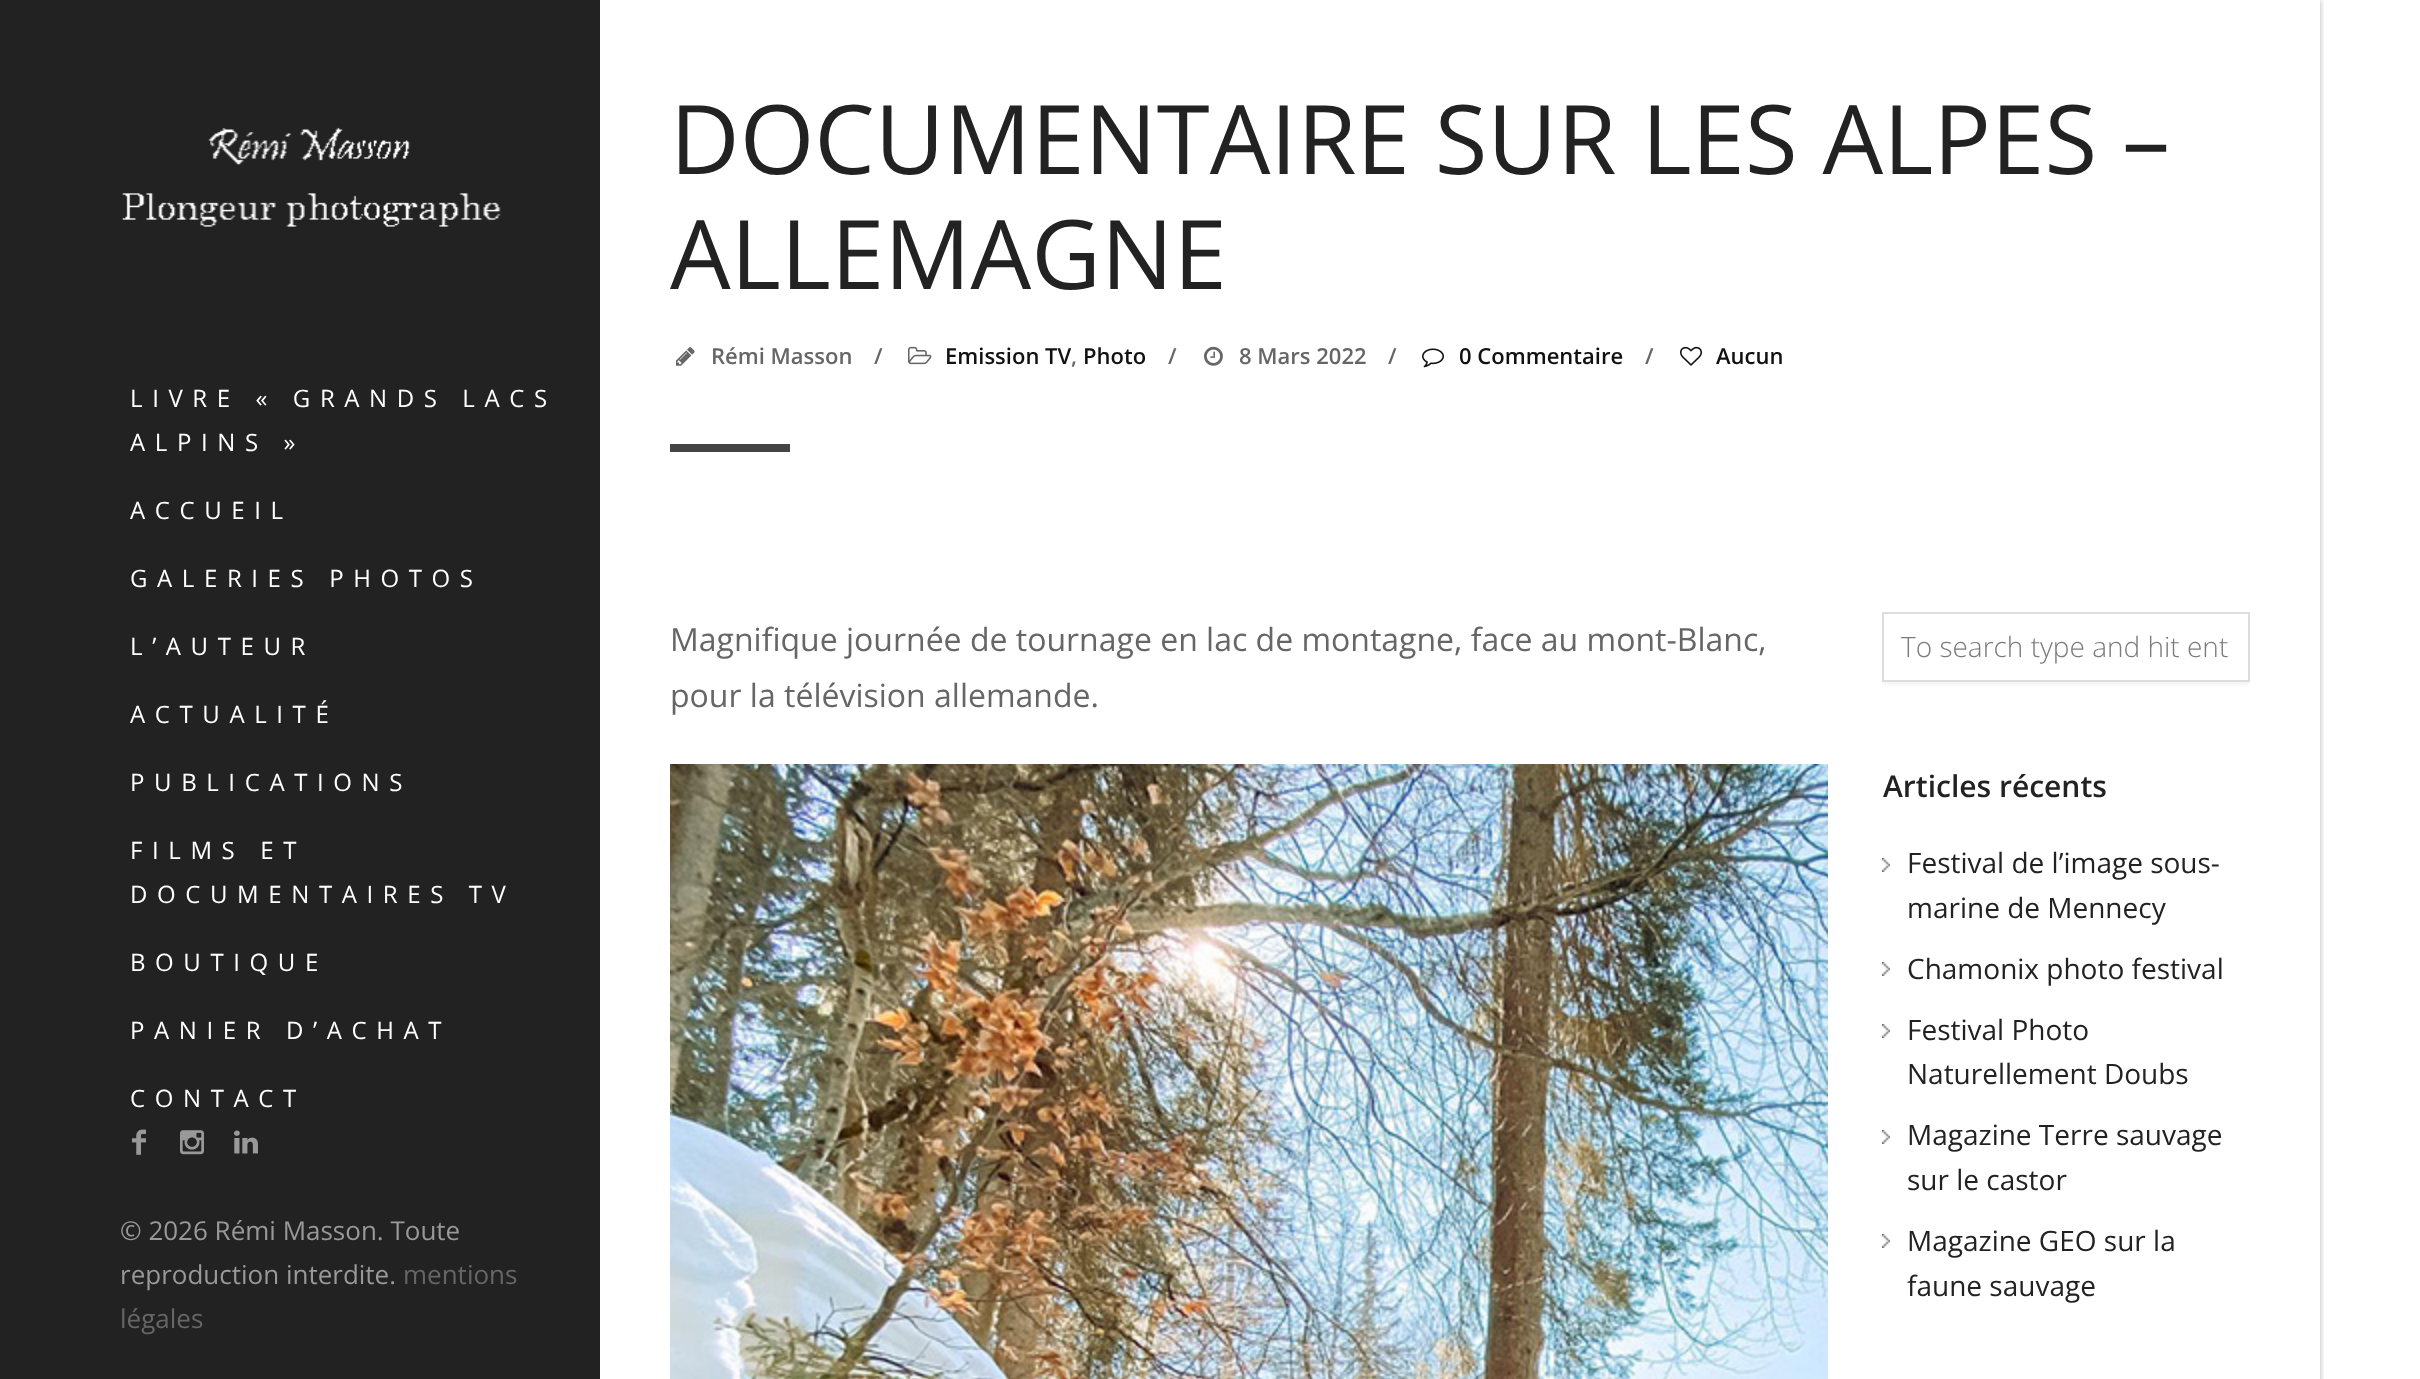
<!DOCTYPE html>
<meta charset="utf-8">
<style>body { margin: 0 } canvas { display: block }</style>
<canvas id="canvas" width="2420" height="1379"></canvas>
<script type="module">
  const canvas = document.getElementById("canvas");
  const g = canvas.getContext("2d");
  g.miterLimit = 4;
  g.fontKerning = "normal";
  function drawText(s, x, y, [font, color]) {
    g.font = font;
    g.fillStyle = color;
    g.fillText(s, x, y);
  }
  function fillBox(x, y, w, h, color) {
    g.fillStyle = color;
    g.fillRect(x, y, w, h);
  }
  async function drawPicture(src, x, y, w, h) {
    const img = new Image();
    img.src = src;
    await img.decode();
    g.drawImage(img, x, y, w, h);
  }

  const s1 = ["24px Open Sans", "#FFFFFF"];
  const s2 = ["26px Open Sans", "#999999"];
  const s3 = ["26px Open Sans", "#666666"];
  const s4 = ["96px Open Sans", "#222222"];
  const s5 = ["600 22px Open Sans", "#666666"];
  const s6 = ["600 22px Open Sans", "#111111"];
  const s7 = ["32px Open Sans", "#666666"];
  const s8 = ["300 28px Open Sans", "#7B7B7B"];
  const s9 = ["600 30px Open Sans", "#222222"];
  const s10 = ["28px Open Sans", "#222222"];

  fillBox(0, 0, 2420, 1379, "#FFFFFF");
  g.save();
  g.beginPath();
  g.rect(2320, 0, 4, 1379);
  g.clip();
  g.fillStyle = "rgba(0, 0, 0, 0.3)";
  g.filter = "blur(3px)";
  g.beginPath();
  g.rect(600, 0, 1720, 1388);
  g.fill();
  g.filter = "none";
  g.restore();
  fillBox(0, 0, 600, 1379, "#222222");
  await drawPicture("pic1.png", 122, 127, 379, 100);
  g.letterSpacing = "9.6px";
  drawText("LIVRE « GRANDS LACS", 130, 407, s1);
  drawText("ALPINS »", 130, 451, s1);
  drawText("ACCUEIL", 130, 519, s1);
  drawText("GALERIES PHOTOS", 130, 587, s1);
  drawText("L’AUTEUR", 130, 655, s1);
  drawText("ACTUALITÉ", 130, 723, s1);
  drawText("PUBLICATIONS", 130, 791, s1);
  drawText("FILMS ET", 130, 859, s1);
  drawText("DOCUMENTAIRES TV", 130, 903, s1);
  drawText("BOUTIQUE", 130, 971, s1);
  drawText("PANIER D’ACHAT", 130, 1039, s1);
  drawText("CONTACT", 130, 1107, s1);
  await drawPicture("pic2.png", 132, 1129, 14, 26);
  await drawPicture("pic3.png", 180, 1130, 24, 25);
  await drawPicture("pic4.png", 234, 1130, 24, 24);
  g.letterSpacing = "0px";
  drawText("© 2026 Rémi Masson. Toute", 120, 1240, s2);
  drawText("reproduction interdite.", 120, 1284, s2);
  drawText("mentions", 403, 1284, s3);
  drawText("légales", 120, 1328, s3);
  drawText("DOCUMENTAIRE SUR LES ALPES –", 670, 174, s4);
  drawText("ALLEMAGNE", 670, 289, s4);
  await drawPicture("pic5.png", 676, 347, 19, 19);
  drawText("Rémi Masson", 711, 364, s5);
  drawText("/", 874, 364, s5);
  await drawPicture("pic6.png", 908, 346, 24, 19);
  drawText("Emission TV", 945, 364, s6);
  drawText(",", 1071, 364, s5);
  drawText("Photo", 1083, 364, s6);
  drawText("/", 1168, 364, s5);
  await drawPicture("pic7.png", 1204, 346, 19, 20);
  drawText("8 Mars 2022", 1239, 364, s5);
  drawText("/", 1388, 364, s5);
  await drawPicture("pic8.png", 1422, 348, 22, 20);
  drawText("0 Commentaire", 1459, 364, s6);
  drawText("/", 1645, 364, s5);
  await drawPicture("pic9.png", 1680, 346, 22, 20);
  drawText("Aucun", 1716, 364, s6);
  fillBox(670, 444, 120, 8, "#444444");
  drawText("Magnifique journée de tournage en lac de montagne, face au mont-Blanc,", 670, 651, s7);
  drawText("pour la télévision allemande.", 670, 707, s7);
  await drawPicture("pic10.png", 670, 764, 1158, 615);
  g.save();
  g.beginPath();
  g.rect(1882, 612, 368, 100);
  g.clip();
  g.beginPath();
  g.rect(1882, 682, 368, 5);
  g.clip();
  g.fillStyle = "rgba(180, 180, 180, 0.2)";
  g.filter = "blur(2px)";
  g.beginPath();
  g.rect(1882, 614, 368, 70);
  g.fill();
  g.filter = "none";
  g.restore();
  g.strokeStyle = "#DDDDDD";
  g.lineWidth = 2;
  g.strokeRect(1883, 613, 366, 68);
  drawText("To search type and hit ent", 1901, 657, s8);
  drawText("Articles récents", 1883, 797, s9);
  await drawPicture("pic11.png", 1882, 858, 8, 14);
  drawText("Festival de l’image sous-", 1907, 873, s10);
  drawText("marine de Mennecy", 1907, 918, s10);
  await drawPicture("pic11.png", 1882, 962, 8, 14);
  drawText("Chamonix photo festival", 1907, 979, s10);
  await drawPicture("pic11.png", 1882, 1024, 8, 14);
  drawText("Festival Photo", 1907, 1040, s10);
  drawText("Naturellement Doubs", 1907, 1084, s10);
  await drawPicture("pic11.png", 1882, 1130, 8, 14);
  drawText("Magazine Terre sauvage", 1907, 1145, s10);
  drawText("sur le castor", 1907, 1190, s10);
  await drawPicture("pic11.png", 1882, 1234, 8, 14);
  drawText("Magazine GEO sur la", 1907, 1251, s10);
  drawText("faune sauvage", 1907, 1296, s10);
</script>
